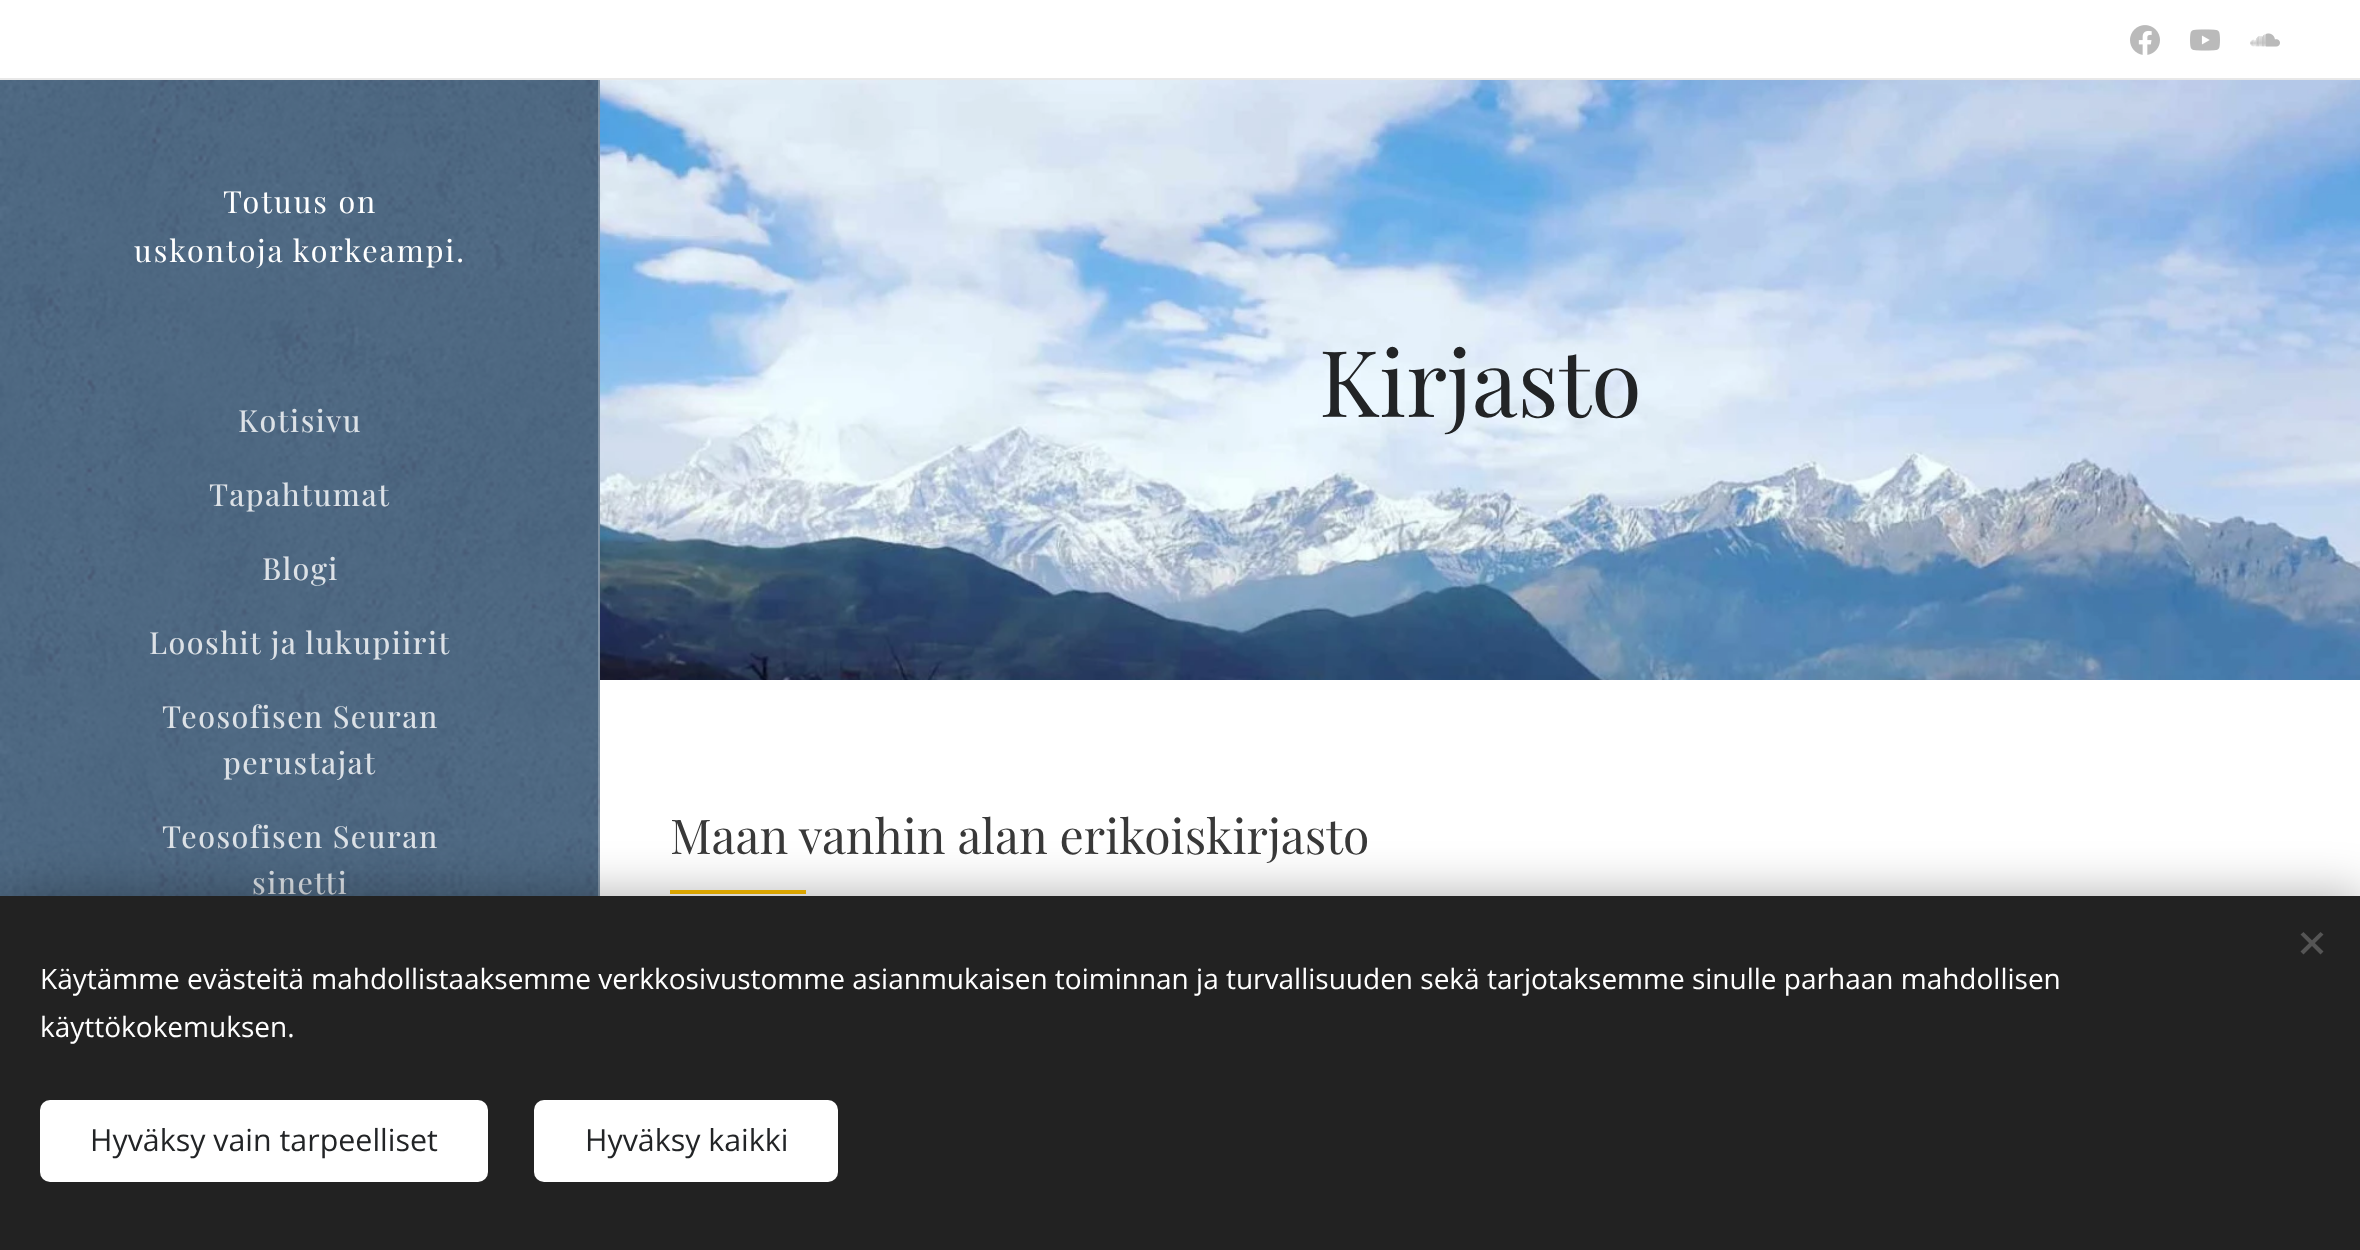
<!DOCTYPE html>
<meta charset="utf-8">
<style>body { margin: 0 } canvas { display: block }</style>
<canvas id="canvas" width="2360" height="1250"></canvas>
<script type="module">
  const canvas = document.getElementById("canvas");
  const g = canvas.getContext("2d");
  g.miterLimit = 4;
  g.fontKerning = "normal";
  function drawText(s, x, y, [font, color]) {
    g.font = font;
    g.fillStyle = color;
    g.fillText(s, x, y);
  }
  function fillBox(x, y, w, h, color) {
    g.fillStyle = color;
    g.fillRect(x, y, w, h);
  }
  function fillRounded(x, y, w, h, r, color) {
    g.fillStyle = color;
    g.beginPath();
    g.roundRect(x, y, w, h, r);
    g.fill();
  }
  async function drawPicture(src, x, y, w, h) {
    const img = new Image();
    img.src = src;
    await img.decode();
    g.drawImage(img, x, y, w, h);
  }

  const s1 = ["30.4px Playfair Display", "#FFFFFF"];
  const s2 = ["30.4px 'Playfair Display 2'", "#DCE1E6"];
  const s3 = ["92px Playfair Display", "#222426"];
  const s4 = ["48px Playfair Display", "#393939"];
  const s5 = ["28px Open Sans", "#FFFFFF"];
  const s6 = ["30.4px Open Sans", "#222426"];

  fillBox(0, 0, 2360, 1250, "#FFFFFF");
  await drawPicture("pic1.png", 2130, 25, 30, 30);
  await drawPicture("pic2.png", 2190, 29, 30, 22);
  await drawPicture("pic3.png", 2250, 33, 30, 14);
  fillBox(0, 78, 2360, 2, "#E8E8E8");
  await drawPicture("pic4.png", 0, 80, 600, 816);
  g.letterSpacing = "2px";
  drawText("Totuus on", 223, 213, s1);
  drawText("uskontoja korkeampi.", 134, 262, s1);
  g.letterSpacing = "1.5px";
  drawText("Kotisivu", 238, 432, s2);
  drawText("Tapahtumat", 209, 506, s2);
  drawText("Blogi", 262, 580, s2);
  drawText("Looshit ja lukupiirit", 149, 654, s2);
  drawText("Teosofisen Seuran", 162, 728, s2);
  drawText("perustajat", 223, 774, s2);
  drawText("Teosofisen Seuran", 162, 848, s2);
  drawText("sinetti", 252, 894, s2);
  fillBox(598, 80, 2, 816, "rgba(255, 255, 255, 0.3)");
  await drawPicture("pic5.png", 600, 80, 1760, 600);
  g.letterSpacing = "0px";
  drawText("Kirjasto", 1319, 417, s3);
  drawText("Maan vanhin alan erikoiskirjasto", 670, 854, s4);
  fillBox(670, 890, 136, 4, "#FFC000");
  g.fillStyle = "rgba(0, 0, 0, 0.33)";
  g.filter = "blur(25px)";
  g.beginPath();
  g.rect(0, 896, 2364, 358);
  g.fill();
  g.filter = "none";
  fillBox(0, 896, 2360, 354, "#222222");
  g.fillStyle = "#555555";
  g.beginPath();
  g.moveTo(2300.5, 951.5);
  g.lineTo(2320.5, 932);
  g.lineTo(2323.5, 934.5);
  g.lineTo(2303.5, 954.5);
  g.closePath();
  g.fill();
  g.beginPath();
  g.moveTo(2303.5, 932);
  g.lineTo(2323.5, 951.5);
  g.lineTo(2320.5, 954.5);
  g.lineTo(2300.5, 934.5);
  g.closePath();
  g.fill();
  drawText("Käytämme evästeitä mahdollistaaksemme verkkosivustomme asianmukaisen toiminnan ja turvallisuuden sekä tarjotaksemme sinulle parhaan mahdollisen", 40, 989, s5);
  drawText("käyttökokemuksen.", 40, 1037, s5);
  fillRounded(40, 1100, 448, 82, 10, "#FFFFFF");
  drawText("Hyväksy vain tarpeelliset", 90, 1151, s6);
  fillRounded(534, 1100, 304, 82, 10, "#FFFFFF");
  drawText("Hyväksy kaikki", 585, 1151, s6);
</script>
